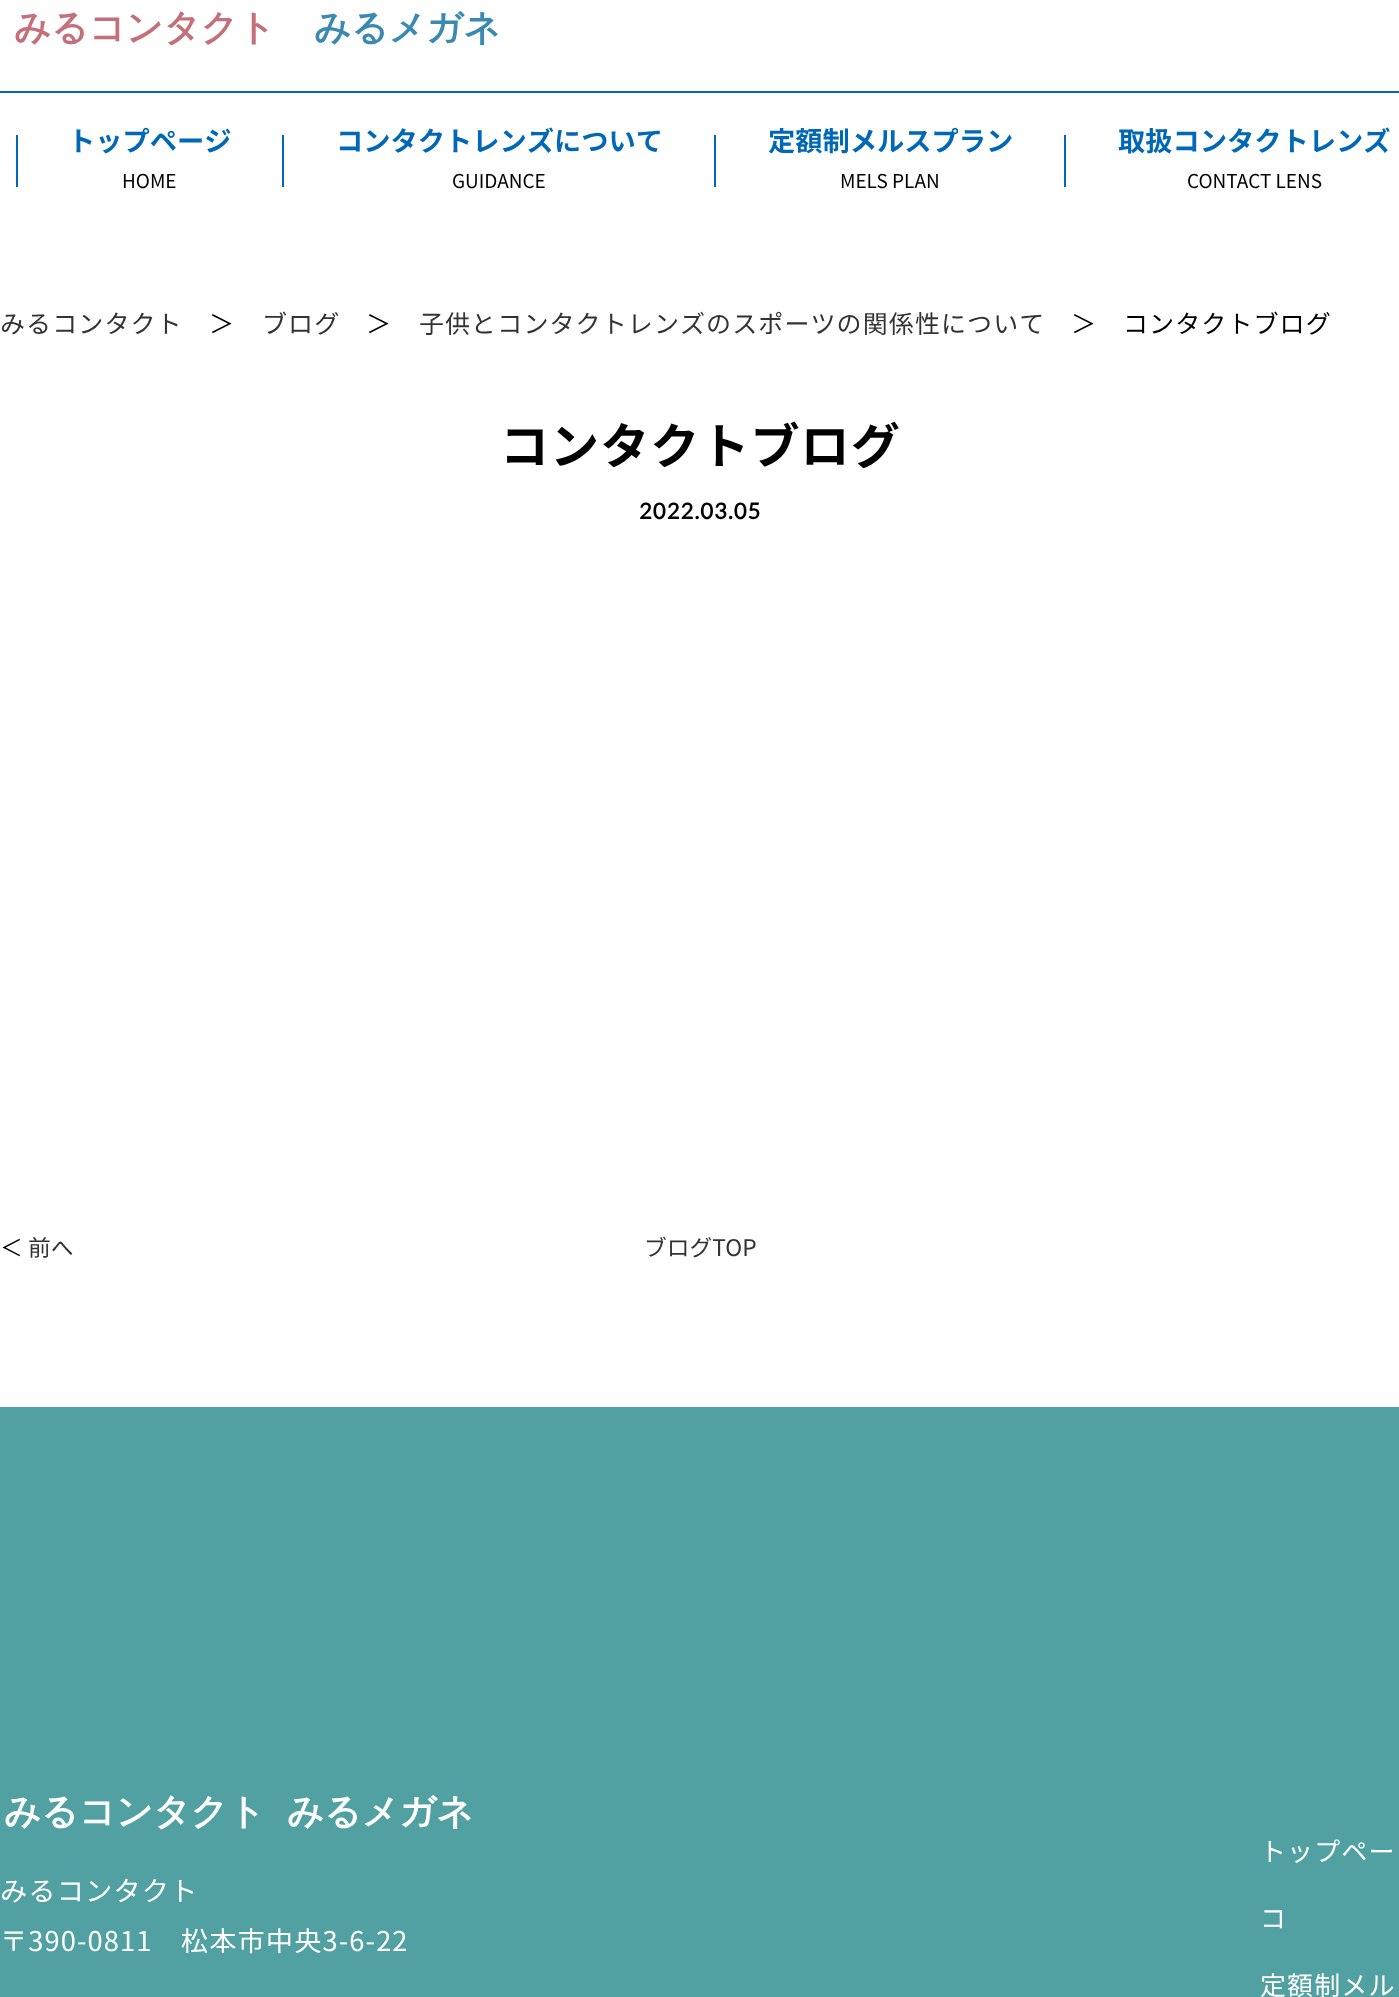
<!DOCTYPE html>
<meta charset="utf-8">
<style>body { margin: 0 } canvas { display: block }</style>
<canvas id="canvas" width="1399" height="1997"></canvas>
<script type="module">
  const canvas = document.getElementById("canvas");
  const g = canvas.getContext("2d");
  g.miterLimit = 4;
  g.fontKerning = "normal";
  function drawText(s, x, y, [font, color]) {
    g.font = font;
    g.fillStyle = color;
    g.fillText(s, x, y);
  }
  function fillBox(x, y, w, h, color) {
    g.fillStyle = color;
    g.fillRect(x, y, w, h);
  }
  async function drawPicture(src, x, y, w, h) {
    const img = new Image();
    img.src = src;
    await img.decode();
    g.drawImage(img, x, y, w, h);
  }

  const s1 = ["bold 36.5px WenQuanYi Zen Hei", "#C4707B"];
  const s2 = ["bold 36.5px WenQuanYi Zen Hei", "#3A89B2"];
  const s3 = ["bold 27.25px Noto Sans JP", "#0068B7"];
  const s4 = ["19px Noto Sans JP", "#000000"];
  const s5 = ["25px Noto Sans JP", "#333333"];
  const s6 = ["25px Noto Sans JP", "#000000"];
  const s7 = ["bold 49px Noto Sans JP", "#000000"];
  const s8 = ["bold 22px Lato", "#000000"];
  const s9 = ["22.75px Noto Sans JP", "#000000"];
  const s10 = ["22.75px Noto Sans JP", "#333333"];
  const s11 = ["bold 36.5px WenQuanYi Zen Hei", "#FFFFFF"];
  const s12 = ["27.25px Noto Sans JP", "#FFFFFF"];
  const s13 = ["26px Noto Sans JP", "#FFFFFF"];

  fillBox(0, 0, 1399, 1997, "#FFFFFF");
  drawText("みるコンタクト", 14, 40, s1);
  drawText("みるメガネ", 314, 40, s2);
  fillBox(0, 91, 1399, 2, "#0068B7");
  fillBox(16, 135, 2, 52, "#0068B7");
  drawText("トップページ", 68, 151, s3);
  drawText("HOME", 122, 188, s4);
  fillBox(282, 135, 2, 52, "#0068B7");
  drawText("コンタクトレンズについて", 336, 151, s3);
  drawText("GUIDANCE", 452, 188, s4);
  fillBox(714, 135, 2, 52, "#0068B7");
  drawText("定額制メルスプラン", 768, 151, s3);
  drawText("MELS PLAN", 840, 188, s4);
  fillBox(1064, 135, 2, 52, "#0068B7");
  drawText("取扱コンタクトレンズ", 1118, 151, s3);
  drawText("CONTACT LENS", 1187, 188, s4);
  g.letterSpacing = "1.1px";
  drawText("みるコンタクト", 0, 333, s5);
  drawText("＞", 209, 333, s6);
  drawText("ブログ", 262, 333, s5);
  drawText("＞", 366, 333, s6);
  drawText("子供とコンタクトレンズのスポーツの関係性について", 419, 333, s5);
  drawText("＞", 1071, 333, s6);
  drawText("コンタクトブログ", 1123, 333, s6);
  drawText("コンタクトブログ", 500, 464, s7);
  drawText("2022.03.05", 639, 519, s8);
  g.letterSpacing = "0px";
  drawText("＜", 0, 1256, s9);
  drawText("前へ", 28, 1256, s10);
  drawText("ブログTOP", 644, 1256, s10);
  fillBox(0, 1407, 1399, 590, "#51A1A2");
  drawText("みるコンタクト", 4, 1824, s11);
  drawText("みるメガネ", 287, 1824, s11);
  g.letterSpacing = "1.1px";
  drawText("みるコンタクト", 0, 1901, s12);
  drawText("〒390-0811　松本市中央3-6-22", 0, 1951, s12);
  drawText("トップペー", 1260, 1861, s13);
  drawText("コ", 1260, 1928, s13);
  drawText("定額制メル", 1260, 1995, s13);
  await drawPicture("pic1.png", 1295, 1908, 87, 21);
</script>
